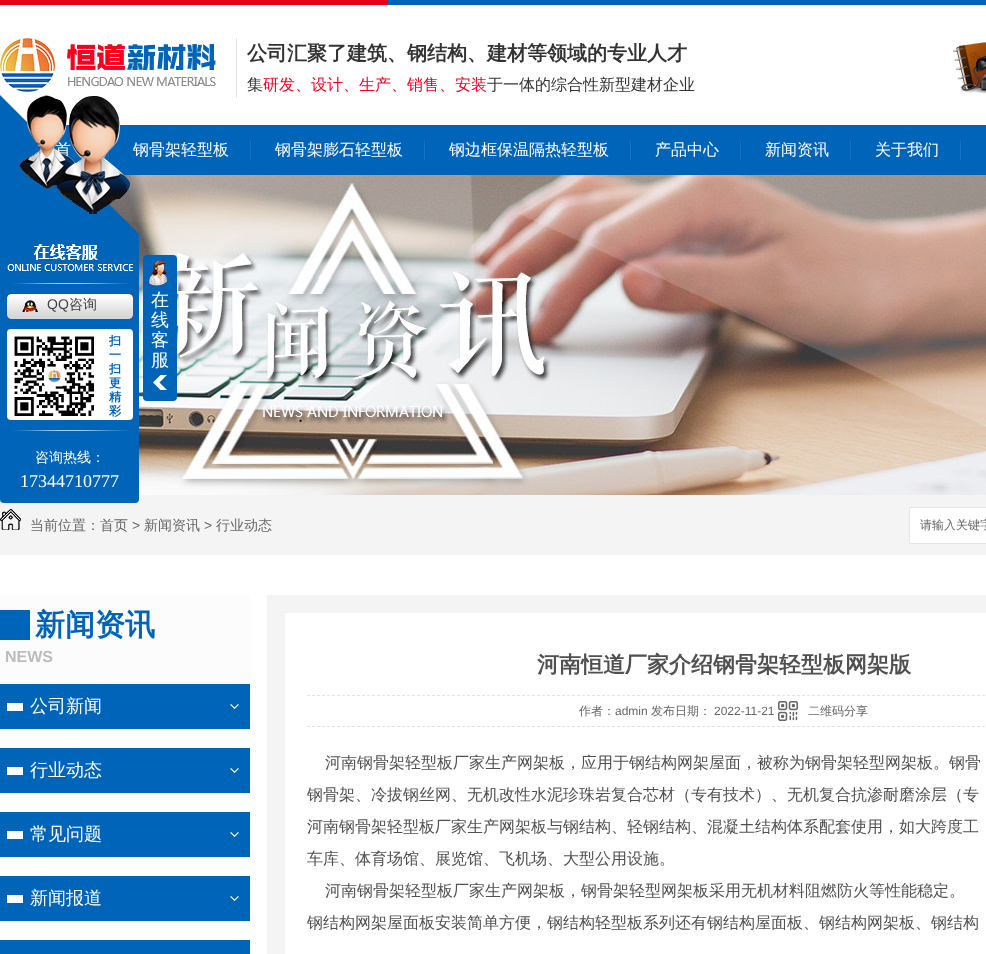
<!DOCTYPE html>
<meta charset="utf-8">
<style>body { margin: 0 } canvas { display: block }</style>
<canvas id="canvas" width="986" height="954"></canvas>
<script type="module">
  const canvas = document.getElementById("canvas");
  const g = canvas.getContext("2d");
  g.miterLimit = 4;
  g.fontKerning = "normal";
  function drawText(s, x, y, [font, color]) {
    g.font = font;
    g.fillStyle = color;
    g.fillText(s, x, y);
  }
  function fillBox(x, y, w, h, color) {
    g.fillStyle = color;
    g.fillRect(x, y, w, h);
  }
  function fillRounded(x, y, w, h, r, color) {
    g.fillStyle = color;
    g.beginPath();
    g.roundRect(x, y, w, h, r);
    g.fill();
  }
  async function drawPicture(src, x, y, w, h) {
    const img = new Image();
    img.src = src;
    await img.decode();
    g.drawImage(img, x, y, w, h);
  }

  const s1 = ["bold 20px WenQuanYi Zen Hei", "#333333"];
  const s2 = ["500 16px WenQuanYi Zen Hei", "#333333"];
  const s3 = ["500 16px WenQuanYi Zen Hei", "#F7011E"];
  const s4 = ["500 16px WenQuanYi Zen Hei", "#FFFFFF"];
  const s5 = ["14px Liberation Sans", "#404040"];
  const s6 = ["500 14px WenQuanYi Zen Hei", "#404040"];
  const s7 = ["bold 12px WenQuanYi Zen Hei", "#0064B9"];
  const s8 = ["500 14px WenQuanYi Zen Hei", "#FFFFFF"];
  const s9 = ["18px Liberation Serif", "#FFFFFF"];
  const s10 = ["500 18px WenQuanYi Zen Hei", "#FFFFFF"];
  const s11 = ["500 14px WenQuanYi Zen Hei", "#666666"];
  const s12 = ["14px Liberation Sans", "#666666"];
  const s13 = ["500 12px WenQuanYi Zen Hei", "#666666"];
  const s14 = ["bold 30px WenQuanYi Zen Hei", "#0064B9"];
  const s15 = ["bold 16px Liberation Sans", "#BCBCBC"];
  const s16 = ["bold 22px WenQuanYi Zen Hei", "#505050"];
  const s17 = ["12px Liberation Sans", "#666666"];
  const s18 = ["500 16px WenQuanYi Zen Hei", "#505050"];

  fillBox(0, 0, 986, 954, "#FFFFFF");
  await drawPicture("pic1.png", 0, 0, 986, 5);
  await drawPicture("pic2.png", 0, 38, 216, 54);
  fillBox(236, 38, 1, 60, "#E2E2E2");
  drawText("公司汇聚了建筑、钢结构、建材等领域的专业人才", 247, 60, s1);
  drawText("集", 247, 90, s2);
  drawText("研发、设计、生产、销售、安装", 263, 90, s3);
  drawText("于一体的综合性新型建材企业", 487, 90, s2);
  await drawPicture("pic3.png", 953, 42, 33, 52);
  fillBox(54, 125, 932, 50, "#0064B9");
  await drawPicture("pic4.png", 108, 150, 2, 10);
  drawText("首", 55, 155, s4);
  await drawPicture("pic5.png", 250, 141, 2, 19);
  drawText("钢骨架轻型板", 133, 155, s4);
  await drawPicture("pic5.png", 424, 141, 2, 19);
  drawText("钢骨架膨石轻型板", 275, 155, s4);
  await drawPicture("pic5.png", 630, 141, 2, 19);
  drawText("钢边框保温隔热轻型板", 449, 155, s4);
  await drawPicture("pic5.png", 740, 141, 2, 19);
  drawText("产品中心", 655, 155, s4);
  await drawPicture("pic5.png", 850, 141, 2, 19);
  drawText("新闻资讯", 765, 155, s4);
  await drawPicture("pic5.png", 960, 141, 2, 19);
  drawText("关于我们", 875, 155, s4);
  await drawPicture("pic14.png", 109, 175, 877, 320);
  g.fillStyle = "#0064B9";
  g.beginPath();
  g.moveTo(0, 95);
  g.lineTo(139, 234);
  g.lineTo(0, 234);
  g.closePath();
  g.fill();
  await drawPicture("pic6.png", 19, 95, 112, 119);
  fillBox(0, 495, 986, 60, "#F4F4F4");
  g.fillStyle = "#0064B9";
  g.beginPath();
  g.roundRect(0, 234, 139, 269, [0, 0, 4, 4]);
  g.fill();
  await drawPicture("pic7.png", 7, 244, 126, 27);
  await drawPicture("pic8.png", 12, 283, 118, 1);
  await drawPicture("pic9.png", 7, 294, 126, 25);
  await drawPicture("pic10.png", 22, 300, 16, 12);
  drawText("QQ", 47, 309, s5);
  drawText("咨询", 69, 309, s6);
  fillRounded(7, 329, 126, 91, 4, "#FFFFFF");
  await drawPicture("pic11.png", 14, 336, 80, 80);
  drawText("扫", 109, 345, s7);
  drawText("一", 109, 359, s7);
  drawText("扫", 109, 373, s7);
  drawText("更", 109, 387, s7);
  drawText("精", 109, 401, s7);
  drawText("彩", 109, 415, s7);
  await drawPicture("pic8.png", 12, 430, 118, 1);
  drawText("咨询热线：", 35, 462, s8);
  drawText("17344710777", 20, 487, s9);
  fillRounded(143, 255, 34, 146, 4, "#0064B9");
  await drawPicture("pic12.png", 153, 375, 14, 15);
  await drawPicture("pic13.png", 146, 260, 22, 26);
  drawText("在", 151, 306, s10);
  drawText("线", 151, 326, s10);
  drawText("客", 151, 346, s10);
  drawText("服", 151, 366, s10);
  await drawPicture("pic15.png", 0, 509, 21, 21);
  drawText("当前位置：首页", 30, 530, s11);
  drawText(">", 132, 530, s12);
  drawText("新闻资讯", 144, 530, s11);
  drawText(">", 204, 530, s12);
  drawText("行业动态", 216, 530, s11);
  g.fillStyle = "#FFFFFF";
  g.beginPath();
  g.rect(909.5, 507.5, 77, 36);
  g.fill();
  g.strokeStyle = "#E5E5E5";
  g.stroke();
  drawText("请输入关键字", 920, 529, s13);
  fillBox(0, 595, 250, 89, "#FCFCFC");
  fillBox(0, 610, 30, 30, "#0064B9");
  drawText("新闻资讯", 35, 635, s14);
  drawText("NEWS", 5, 662, s15);
  fillBox(0, 684, 250, 45, "#0064B9");
  await drawPicture("pic16.png", 230, 704, 9, 5);
  fillBox(7, 703, 16, 8, "#FFFFFF");
  drawText("公司新闻", 30, 712, s10);
  fillBox(0, 748, 250, 45, "#0064B9");
  await drawPicture("pic16.png", 230, 768, 9, 5);
  fillBox(7, 767, 16, 8, "#FFFFFF");
  drawText("行业动态", 30, 776, s10);
  fillBox(0, 812, 250, 45, "#0064B9");
  await drawPicture("pic16.png", 230, 832, 9, 5);
  fillBox(7, 831, 16, 8, "#FFFFFF");
  drawText("常见问题", 30, 840, s10);
  fillBox(0, 876, 250, 45, "#0064B9");
  await drawPicture("pic16.png", 230, 896, 9, 5);
  fillBox(7, 895, 16, 8, "#FFFFFF");
  drawText("新闻报道", 30, 904, s10);
  fillBox(0, 940, 250, 14, "#0064B9");
  g.strokeStyle = "#F4F4F4";
  g.lineWidth = 18;
  g.strokeRect(276, 604, 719, 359);
  g.beginPath();
  g.moveTo(307, 695.5);
  g.lineTo(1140, 695.5);
  g.strokeStyle = "#E1E3DF";
  g.lineWidth = 1;
  g.setLineDash([3, 2]);
  g.stroke();
  drawText("河南恒道厂家介绍钢骨架轻型板网架版", 537, 672, s16);
  g.beginPath();
  g.moveTo(307, 726.5);
  g.lineTo(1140, 726.5);
  g.stroke();
  drawText("作者：", 579, 715, s13);
  drawText("admin", 615, 715, s17);
  drawText("发布日期：", 651, 715, s13);
  drawText("2022-11-21", 714, 715, s17);
  await drawPicture("pic17.png", 778, 701, 20, 20);
  drawText("二维码分享", 808, 715, s13);
  drawText("河南钢骨架轻型板厂家生产网架板，应用于钢结构网架屋面，被称为钢骨架轻型网架板。钢骨", 325, 768, s18);
  drawText("钢骨架、冷拔钢丝网、无机改性水泥珍珠岩复合芯材（专有技术）、无机复合抗渗耐磨涂层（专", 307, 800, s18);
  drawText("河南钢骨架轻型板厂家生产网架板与钢结构、轻钢结构、混凝土结构体系配套使用，如大跨度工", 307, 832, s18);
  drawText("车库、体育场馆、展览馆、飞机场、大型公用设施。", 307, 864, s18);
  drawText("河南钢骨架轻型板厂家生产网架板，钢骨架轻型网架板采用无机材料阻燃防火等性能稳定。", 325, 896, s18);
  drawText("钢结构网架屋面板安装简单方便，钢结构轻型板系列还有钢结构屋面板、钢结构网架板、钢结构", 307, 928, s18);
</script>
